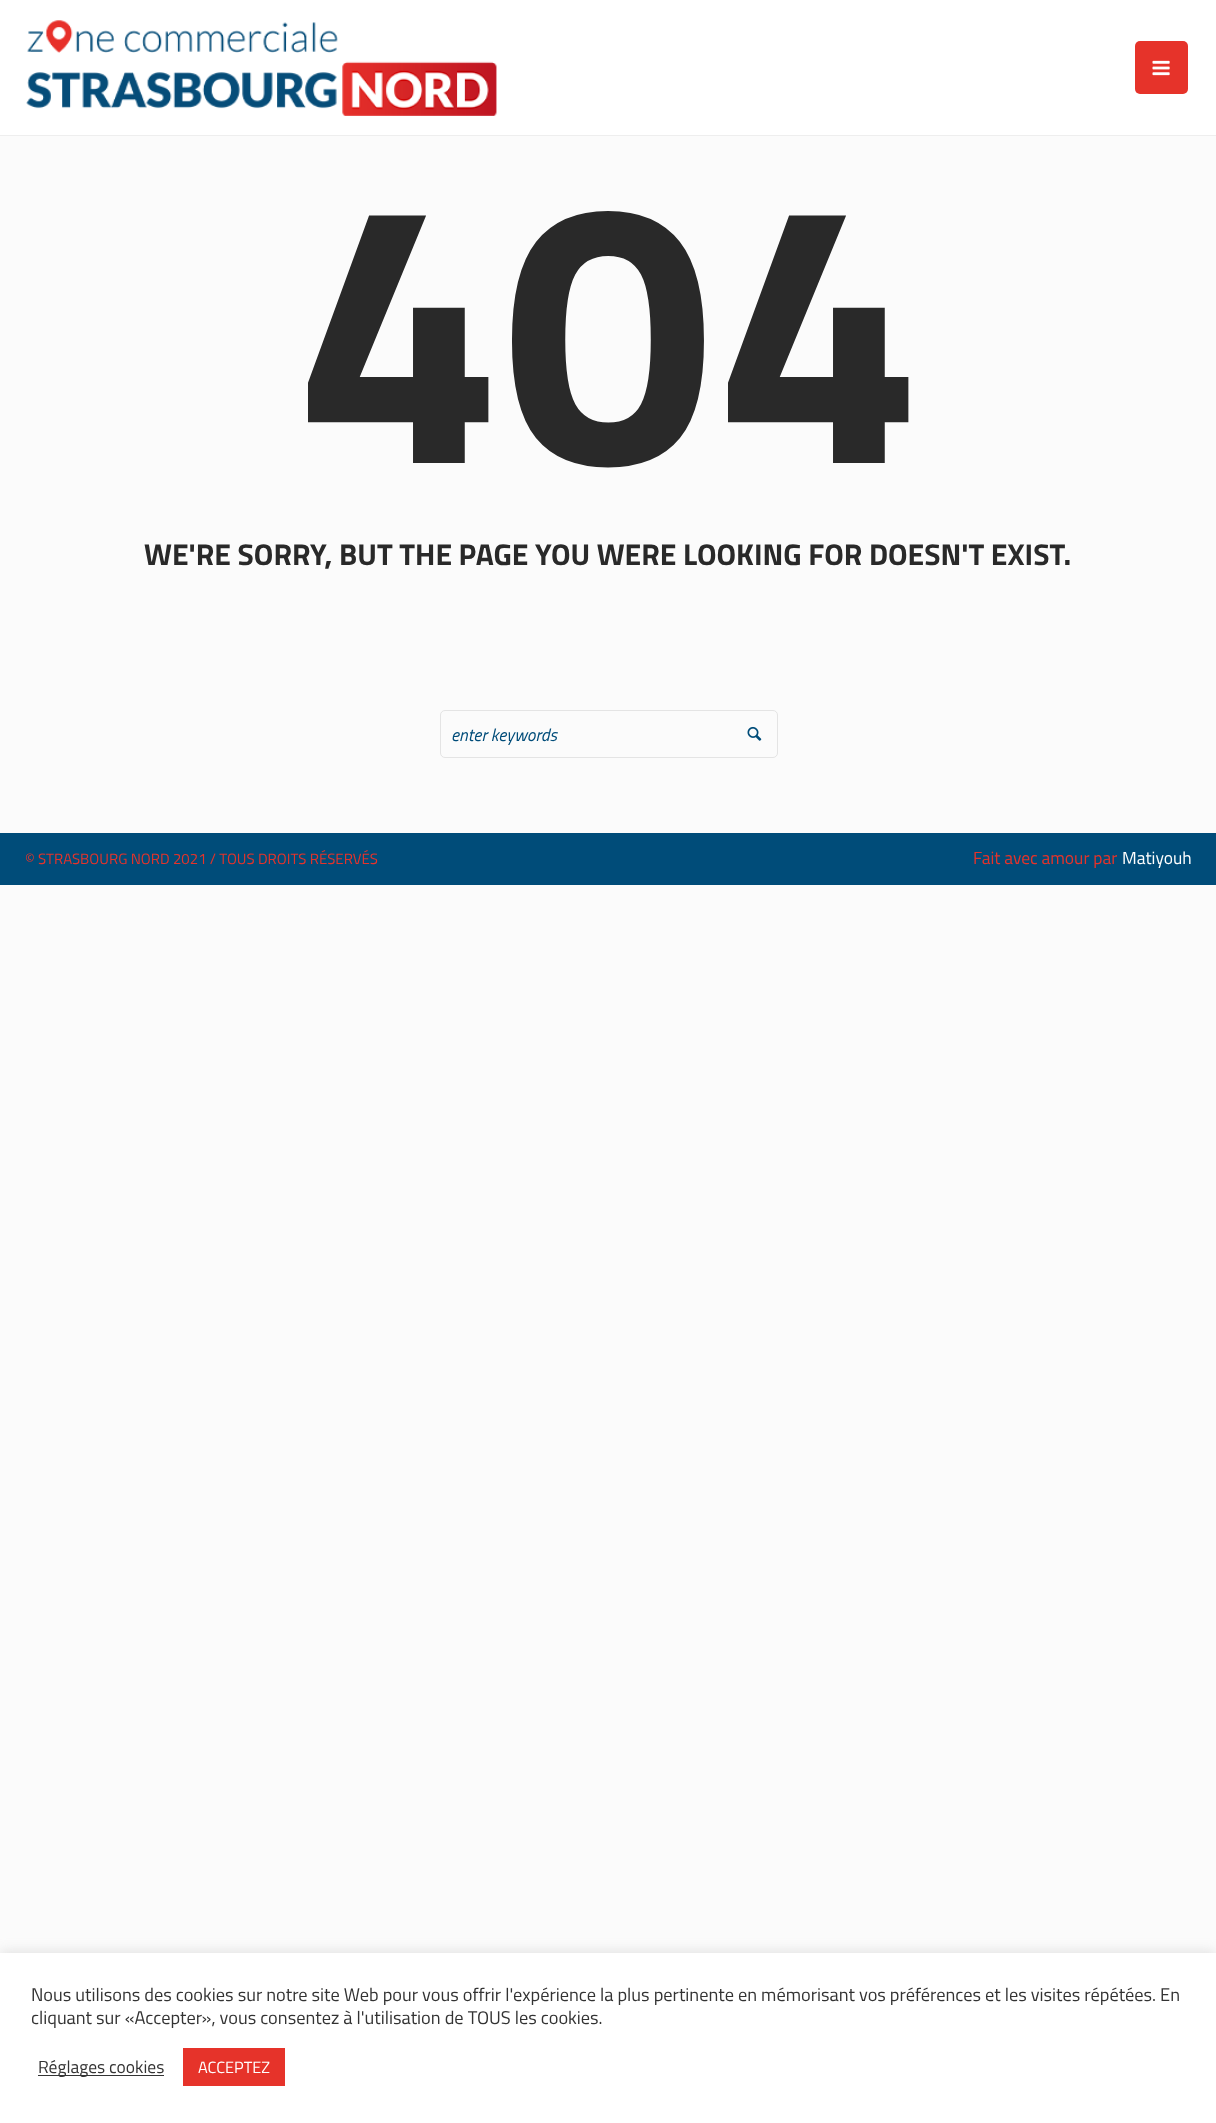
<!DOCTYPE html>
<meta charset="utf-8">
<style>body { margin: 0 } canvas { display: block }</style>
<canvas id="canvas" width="1216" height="2123"></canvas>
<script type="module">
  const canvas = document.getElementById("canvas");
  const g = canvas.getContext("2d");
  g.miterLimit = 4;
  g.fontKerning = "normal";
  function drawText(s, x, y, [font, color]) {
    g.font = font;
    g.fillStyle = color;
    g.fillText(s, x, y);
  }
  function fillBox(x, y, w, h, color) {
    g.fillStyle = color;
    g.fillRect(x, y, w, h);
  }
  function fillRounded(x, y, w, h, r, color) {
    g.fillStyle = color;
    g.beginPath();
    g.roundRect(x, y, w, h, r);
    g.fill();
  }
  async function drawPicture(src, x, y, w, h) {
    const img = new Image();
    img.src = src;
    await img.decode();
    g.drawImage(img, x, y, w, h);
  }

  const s1 = ["bold 375px Titillium Web", "#292929"];
  const s2 = ["bold 30px Titillium Web", "#292929"];
  const s3 = ["italic 17.5px Titillium Web", "#004C79"];
  const s4 = ["15px Titillium Web", "#E6332A"];
  const s5 = ["17.5px Titillium Web", "#E6332A"];
  const s6 = ["17.5px Titillium Web", "#FFFFFF"];
  const s7 = ["18.33px Titillium Web", "#333333"];
  const s8 = ["17.5px Titillium Web", "#333333"];
  const s9 = ["16.25px Titillium Web", "#FFFFFF"];

  fillBox(0, 0, 1216, 2123, "#FBFBFB");
  g.fillStyle = "rgba(0, 0, 0, 0.05)";
  g.filter = "blur(0.5px)";
  g.beginPath();
  g.rect(0, 1, 1216, 135);
  g.fill();
  g.filter = "none";
  fillBox(0, 0, 1216, 135, "#FFFFFF");
  await drawPicture("pic1.png", 26, 20, 471, 96);
  fillRounded(1135, 41, 53, 53, 5, "#E6332A");
  await drawPicture("pic2.png", 1152, 60, 18, 16);
  drawText("404", 293, 463, s1);
  drawText("WE'RE SORRY, BUT THE PAGE YOU WERE LOOKING FOR DOESN'T EXIST.", 144, 565, s2);
  g.beginPath();
  g.roundRect(440.5, 710.5, 337, 47, 4.5);
  g.strokeStyle = "#E4E4E4";
  g.stroke();
  drawText("enter keywords", 451, 741, s3);
  await drawPicture("pic3.png", 747, 726, 15, 15);
  fillBox(0, 833, 1216, 52, "#004C79");
  drawText("© STRASBOURG NORD 2021 / TOUS DROITS RÉSERVÉS", 25, 864, s4);
  drawText("Fait avec amour par", 973, 864, s5);
  drawText("Matiyouh", 1122, 864, s6);
  g.fillStyle = "rgba(172, 171, 171, 0.3)";
  g.filter = "blur(6px)";
  g.beginPath();
  g.rect(0, 1951, 1216, 172);
  g.fill();
  g.filter = "none";
  fillBox(0, 1953, 1216, 170, "#FFFFFF");
  drawText("Nous utilisons des cookies sur notre site Web pour vous offrir l'expérience la plus pertinente en mémorisant vos préférences et les visites répétées. En", 31, 2001, s7);
  drawText("cliquant sur «Accepter», vous consentez à l'utilisation de TOUS les cookies.", 31, 2024, s7);
  fillBox(38, 2075, 126, 1, "#333333");
  drawText("Réglages cookies", 38, 2073, s8);
  fillBox(183, 2048, 102, 38, "#E6332A");
  drawText("ACCEPTEZ", 198, 2073, s9);
</script>
